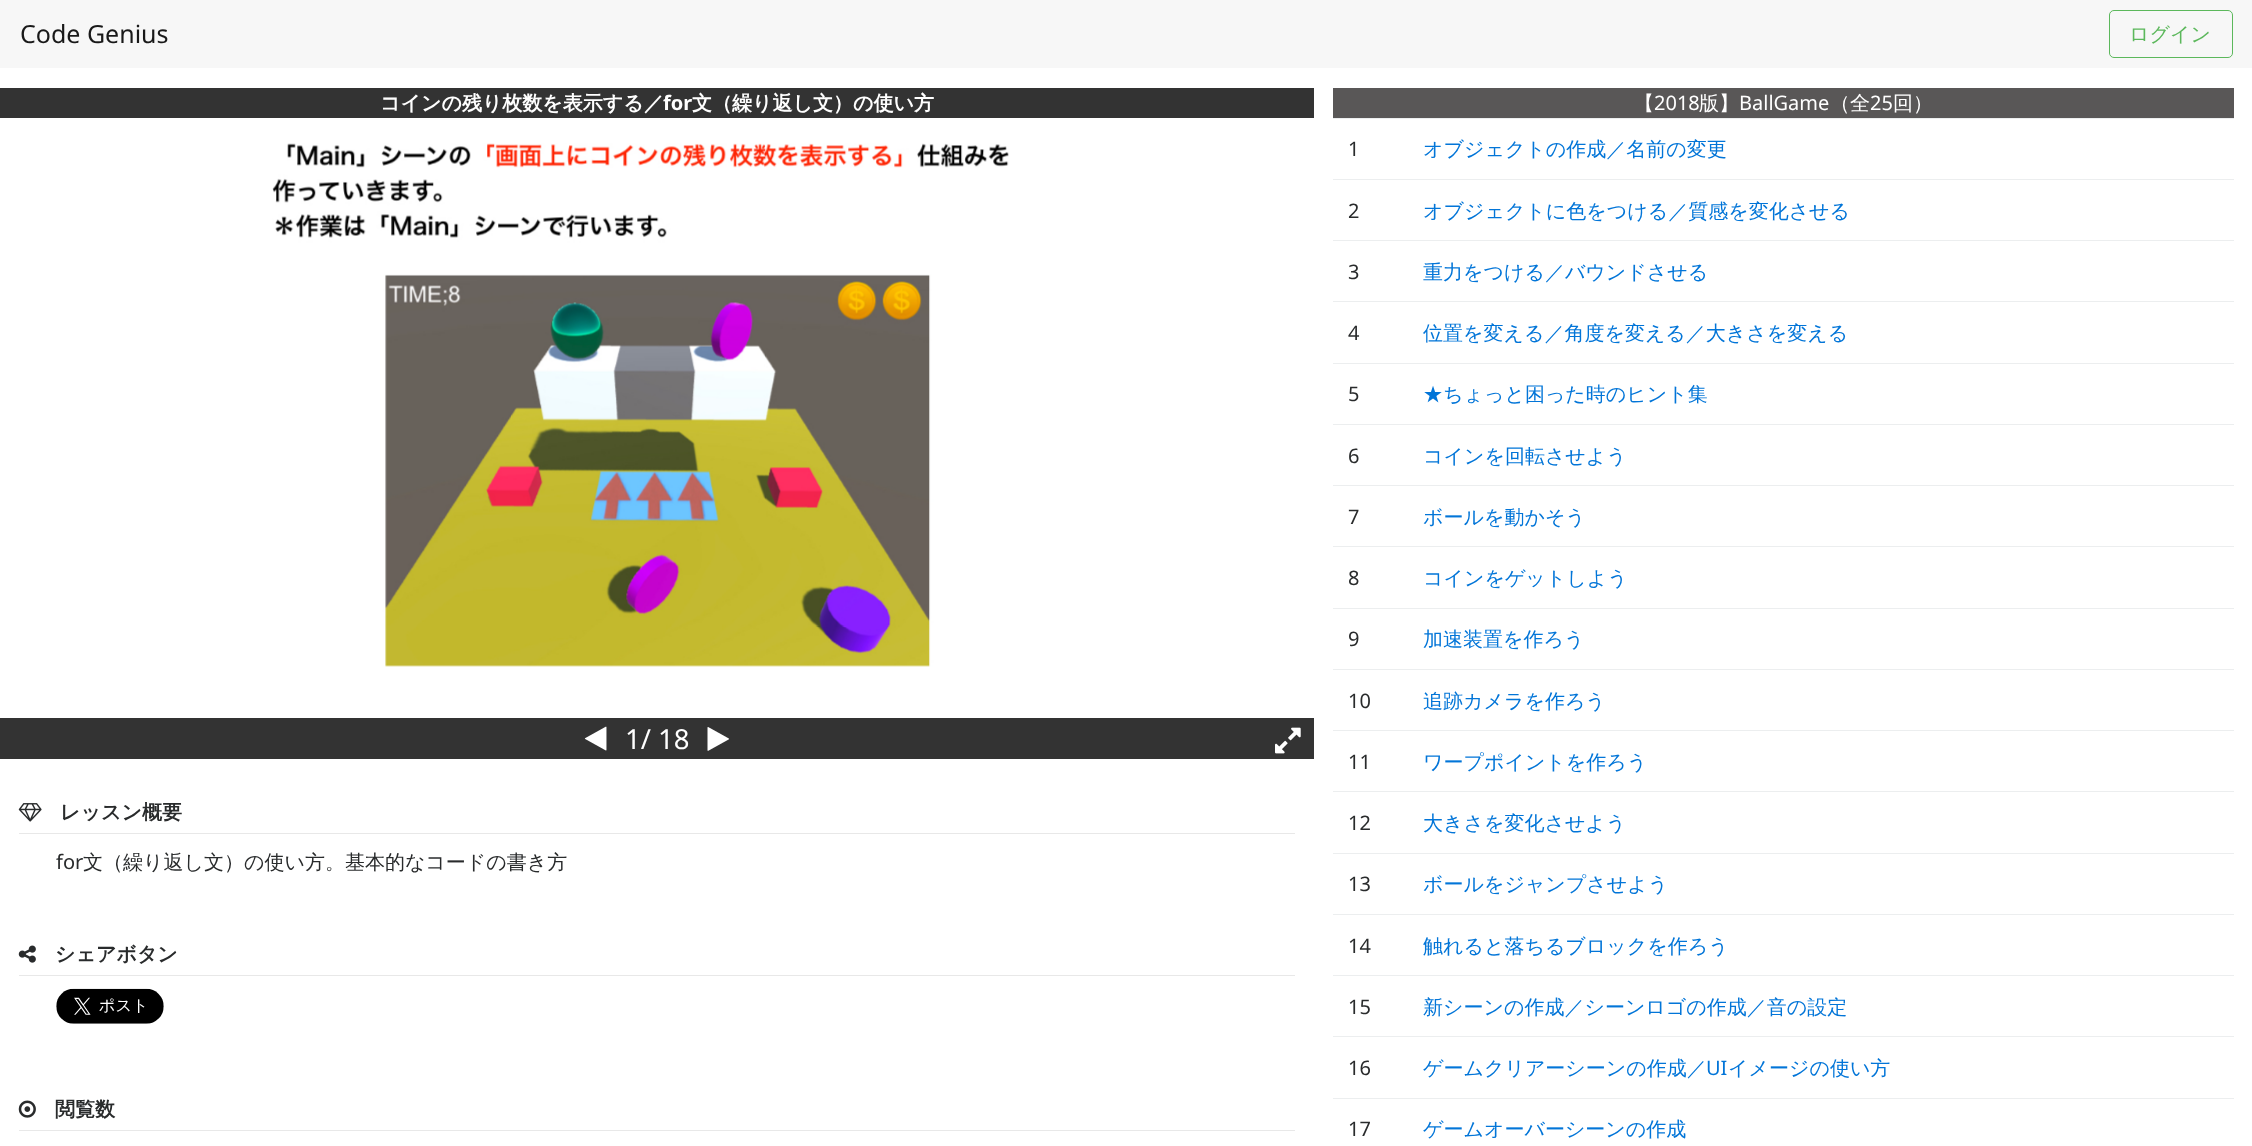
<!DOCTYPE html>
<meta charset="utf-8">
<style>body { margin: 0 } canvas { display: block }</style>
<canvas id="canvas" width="2252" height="1146"></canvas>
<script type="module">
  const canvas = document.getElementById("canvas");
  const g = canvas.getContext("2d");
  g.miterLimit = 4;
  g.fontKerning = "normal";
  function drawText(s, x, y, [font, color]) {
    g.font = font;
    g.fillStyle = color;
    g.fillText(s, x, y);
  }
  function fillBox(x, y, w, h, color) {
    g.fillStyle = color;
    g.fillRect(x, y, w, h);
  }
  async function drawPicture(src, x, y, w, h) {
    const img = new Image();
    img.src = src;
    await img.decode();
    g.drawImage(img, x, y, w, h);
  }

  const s1 = ["25px Noto Sans", "#191919"];
  const s2 = ["500 20px WenQuanYi Zen Hei", "#5CB85C"];
  const s3 = ["bold 20px WenQuanYi Zen Hei", "#FFFFFF"];
  const s4 = ["bold 20px Noto Sans", "#FFFFFF"];
  const s5 = ["27.5px Noto Sans", "#FFFFFF"];
  const s6 = ["bold 20px WenQuanYi Zen Hei", "#292B2C"];
  const s7 = ["20px Noto Sans", "#292B2C"];
  const s8 = ["500 20px WenQuanYi Zen Hei", "#292B2C"];
  const s9 = ["500 20px WenQuanYi Zen Hei", "#FFFFFF"];
  const s10 = ["20px Noto Sans", "#FFFFFF"];
  const s11 = ["500 20px WenQuanYi Zen Hei", "#0275D8"];
  const s12 = ["20px Noto Sans", "#0275D8"];

  fillBox(0, 0, 2252, 1146, "#FFFFFF");
  fillBox(0, 0, 2252, 68, "#F7F7F7");
  drawText("Code Genius", 20, 43, s1);
  g.beginPath();
  g.roundRect(2109.5, 10.5, 123, 47, 4.5);
  g.strokeStyle = "#5CB85C";
  g.stroke();
  drawText("ログイン", 2129, 41, s2);
  fillBox(0, 88, 1314, 30, "#333333");
  drawText("コインの残り枚数を表示する／", 380, 110, s3);
  drawText("for", 663, 110, s4);
  drawText("文（繰り返し文）の使い方", 692, 110, s3);
  await drawPicture("pic1.png", 272, 143, 737, 524);
  fillBox(0, 718, 1314, 41, "#333333");
  await drawPicture("pic2.png", 584, 726, 23, 25);
  drawText("1/ 18", 625, 749, s5);
  await drawPicture("pic3.png", 707, 727, 22, 24);
  await drawPicture("pic4.png", 1275, 727, 26, 27);
  fillBox(19, 833, 1276, 1, "#E8E8E8");
  await drawPicture("pic5.png", 18, 803, 24, 19);
  drawText("レッスン概要", 60, 819, s6);
  drawText("for", 56, 869, s7);
  drawText("文（繰り返し文）の使い方。基本的なコードの書き方", 83, 869, s8);
  fillBox(19, 975, 1276, 1, "#E8E8E8");
  await drawPicture("pic6.png", 18, 945, 18, 18);
  drawText("シェアボタン", 55, 961, s6);
  await drawPicture("pic7.png", 56, 988, 108, 36);
  fillBox(19, 1130, 1276, 1, "#E8E8E8");
  await drawPicture("pic8.png", 18, 1100, 18, 18);
  drawText("閲覧数", 55, 1116, s6);
  fillBox(1333, 88, 901, 30, "#595757");
  drawText("【", 1634, 110, s9);
  drawText("2018", 1654, 110, s10);
  drawText("版】", 1699, 110, s9);
  drawText("BallGame", 1739, 110, s10);
  drawText("（全", 1830, 110, s9);
  drawText("25", 1870, 110, s10);
  drawText("回）", 1893, 110, s9);
  drawText("1", 1348, 156, s7);
  fillBox(1333, 118, 901, 1, "#ECEEEF");
  drawText("オブジェクトの作成／名前の変更", 1423, 156, s11);
  drawText("2", 1348, 218, s7);
  fillBox(1333, 179, 901, 1, "#ECEEEF");
  drawText("オブジェクトに色をつける／質感を変化させる", 1423, 218, s11);
  drawText("3", 1348, 279, s7);
  fillBox(1333, 240, 901, 1, "#ECEEEF");
  drawText("重力をつける／バウンドさせる", 1423, 279, s11);
  drawText("4", 1348, 340, s7);
  fillBox(1333, 301, 901, 1, "#ECEEEF");
  drawText("位置を変える／角度を変える／大きさを変える", 1423, 340, s11);
  drawText("5", 1348, 401, s7);
  fillBox(1333, 363, 901, 1, "#ECEEEF");
  drawText("★ちょっと困った時のヒント集", 1423, 401, s11);
  drawText("6", 1348, 463, s7);
  fillBox(1333, 424, 901, 1, "#ECEEEF");
  drawText("コインを回転させよう", 1423, 463, s11);
  drawText("7", 1348, 524, s7);
  fillBox(1333, 485, 901, 1, "#ECEEEF");
  drawText("ボールを動かそう", 1423, 524, s11);
  drawText("8", 1348, 585, s7);
  fillBox(1333, 546, 901, 1, "#ECEEEF");
  drawText("コインをゲットしよう", 1423, 585, s11);
  drawText("9", 1348, 646, s7);
  fillBox(1333, 608, 901, 1, "#ECEEEF");
  drawText("加速装置を作ろう", 1423, 646, s11);
  drawText("10", 1348, 708, s7);
  fillBox(1333, 669, 901, 1, "#ECEEEF");
  drawText("追跡カメラを作ろう", 1423, 708, s11);
  drawText("11", 1348, 769, s7);
  fillBox(1333, 730, 901, 1, "#ECEEEF");
  drawText("ワープポイントを作ろう", 1423, 769, s11);
  drawText("12", 1348, 830, s7);
  fillBox(1333, 791, 901, 1, "#ECEEEF");
  drawText("大きさを変化させよう", 1423, 830, s11);
  drawText("13", 1348, 891, s7);
  fillBox(1333, 853, 901, 1, "#ECEEEF");
  drawText("ボールをジャンプさせよう", 1423, 891, s11);
  drawText("14", 1348, 953, s7);
  fillBox(1333, 914, 901, 1, "#ECEEEF");
  drawText("触れると落ちるブロックを作ろう", 1423, 953, s11);
  drawText("15", 1348, 1014, s7);
  fillBox(1333, 975, 901, 1, "#ECEEEF");
  drawText("新シーンの作成／シーンロゴの作成／音の設定", 1423, 1014, s11);
  drawText("16", 1348, 1075, s7);
  fillBox(1333, 1036, 901, 1, "#ECEEEF");
  drawText("ゲームクリアーシーンの作成／", 1423, 1075, s11);
  drawText("UI", 1706, 1075, s12);
  drawText("イメージの使い方", 1728, 1075, s11);
  drawText("17", 1348, 1136, s7);
  fillBox(1333, 1098, 901, 1, "#ECEEEF");
  drawText("ゲームオーバーシーンの作成", 1423, 1136, s11);
</script>
